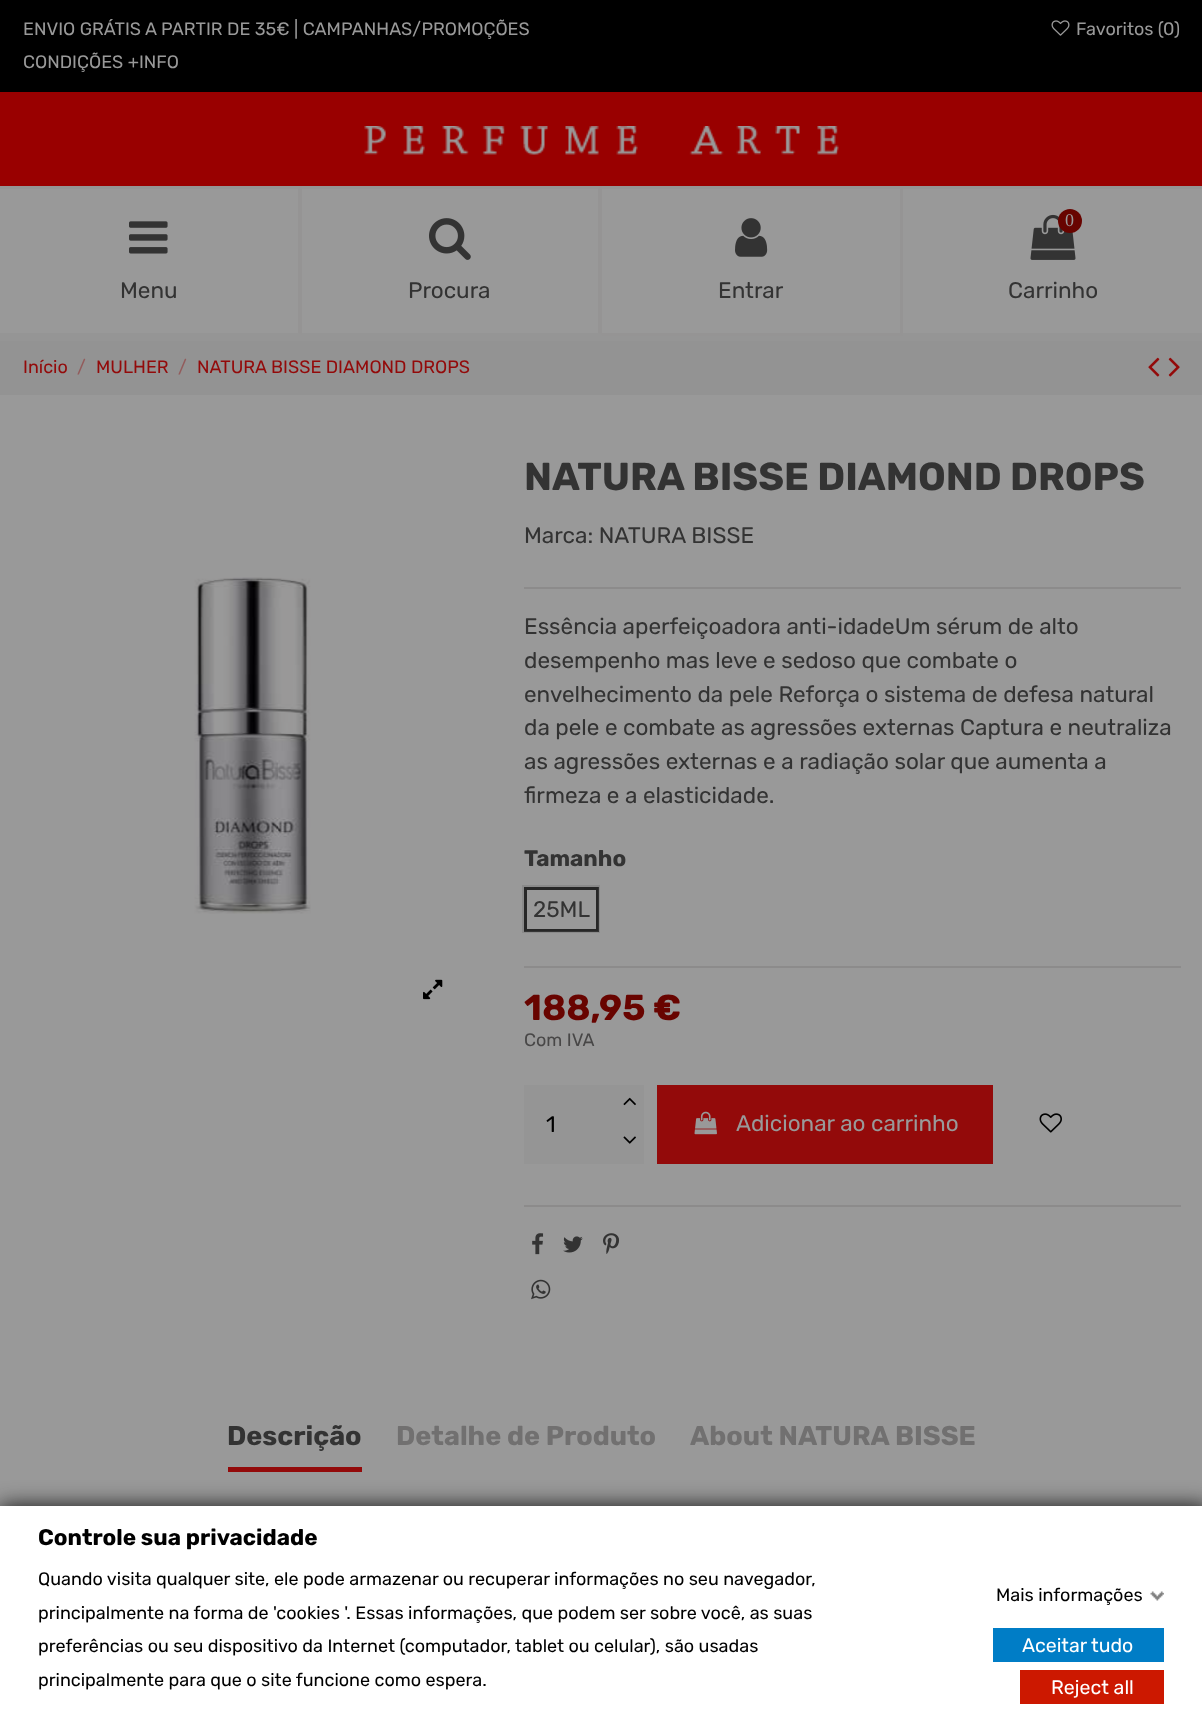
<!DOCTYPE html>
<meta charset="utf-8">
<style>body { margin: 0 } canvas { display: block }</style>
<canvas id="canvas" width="1202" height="1721"></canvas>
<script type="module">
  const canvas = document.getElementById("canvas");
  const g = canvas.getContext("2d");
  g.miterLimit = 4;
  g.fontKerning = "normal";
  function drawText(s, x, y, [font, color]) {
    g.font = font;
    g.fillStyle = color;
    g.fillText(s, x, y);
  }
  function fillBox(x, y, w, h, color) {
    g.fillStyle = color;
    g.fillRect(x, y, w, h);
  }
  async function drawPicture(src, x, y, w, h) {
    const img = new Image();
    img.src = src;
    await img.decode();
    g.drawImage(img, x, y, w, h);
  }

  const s1 = ["18px Rubik", "#999999"];
  const s2 = ["22.5px Rubik", "#333333"];
  const s3 = ["18px Liberation Serif", "#999999"];
  const s4 = ["18px Rubik", "#930A0A"];
  const s5 = ["18px Rubik", "#935C5C"];
  const s6 = ["bold 39px Rubik", "#333333"];
  const s7 = ["bold 22.5px Rubik", "#333333"];
  const s8 = ["bold 36px Rubik", "#680400"];
  const s9 = ["18px Rubik", "#484747"];
  const s10 = ["22.5px Rubik", "#000000"];
  const s11 = ["22.5px Rubik", "#999999"];
  const s12 = ["bold 27px Rubik", "#333333"];
  const s13 = ["bold 27px Rubik", "#717070"];
  const s14 = ["bold 22.5px Rubik", "#000000"];
  const s15 = ["18px Rubik", "#000000"];
  const s16 = ["19.5px Rubik", "#FFFFFF"];

  fillBox(0, 0, 1202, 1721, "#999999");
  fillBox(0, 92, 1202, 94, "#990000");
  fillBox(0, 336, 1202, 5, "#959595");
  fillBox(0, 0, 1202, 92, "#000000");
  drawText("ENVIO GRÁTIS A PARTIR DE 35€ | CAMPANHAS/PROMOÇÕES", 23, 35, s1);
  drawText("CONDIÇÕES +INFO", 23, 68, s1);
  await drawPicture("pic1.png", 1051, 20, 19, 16);
  drawText("Favoritos (", 1076, 35, s1);
  drawText("0", 1163, 35, s1);
  drawText(")", 1174, 35, s1);
  await drawPicture("pic2.png", 364, 126, 475, 29);
  g.fillStyle = "#959595";
  g.beginPath();
  g.moveTo(0, 186);
  g.lineTo(302, 186);
  g.lineTo(298, 189);
  g.lineTo(0, 189);
  g.closePath();
  g.fill();
  g.fillStyle = "rgba(140, 139, 139, 0.29)";
  g.beginPath();
  g.moveTo(302, 186);
  g.lineTo(302, 336);
  g.lineTo(298, 333);
  g.lineTo(298, 189);
  g.closePath();
  g.fill();
  g.fillStyle = "#959595";
  g.beginPath();
  g.moveTo(302, 336);
  g.lineTo(0, 336);
  g.lineTo(0, 333);
  g.lineTo(298, 333);
  g.closePath();
  g.fill();
  await drawPicture("pic3.png", 129, 221, 39, 33);
  drawText("Menu", 120, 298, s2);
  g.fillStyle = "#959595";
  g.beginPath();
  g.moveTo(302, 186);
  g.lineTo(602, 186);
  g.lineTo(598, 189);
  g.lineTo(302, 189);
  g.closePath();
  g.fill();
  g.fillStyle = "rgba(140, 139, 139, 0.29)";
  g.beginPath();
  g.moveTo(602, 186);
  g.lineTo(602, 336);
  g.lineTo(598, 333);
  g.lineTo(598, 189);
  g.closePath();
  g.fill();
  g.fillStyle = "#959595";
  g.beginPath();
  g.moveTo(602, 336);
  g.lineTo(302, 336);
  g.lineTo(302, 333);
  g.lineTo(598, 333);
  g.closePath();
  g.fill();
  await drawPicture("pic4.png", 429, 218, 42, 42);
  drawText("Procura", 408, 298, s2);
  g.fillStyle = "#959595";
  g.beginPath();
  g.moveTo(602, 186);
  g.lineTo(903, 186);
  g.lineTo(900, 189);
  g.lineTo(602, 189);
  g.closePath();
  g.fill();
  g.fillStyle = "rgba(140, 139, 139, 0.29)";
  g.beginPath();
  g.moveTo(903, 186);
  g.lineTo(903, 336);
  g.lineTo(900, 333);
  g.lineTo(900, 189);
  g.closePath();
  g.fill();
  g.beginPath();
  g.moveTo(903, 336);
  g.lineTo(602, 336);
  g.lineTo(602, 333);
  g.lineTo(900, 333);
  g.closePath();
  g.fill();
  await drawPicture("pic5.png", 735, 218, 33, 39);
  drawText("Entrar", 718, 298, s2);
  fillBox(903, 186, 299, 3, "#959595");
  fillBox(903, 333, 299, 3, "#959595");
  await drawPicture("pic6.png", 1030, 214, 46, 46);
  g.fillStyle = "#680400";
  g.beginPath();
  g.arc(1070, 221, 12, 0, Math.PI * 2);
  g.fill();
  drawText("0", 1065, 226, s3);
  drawText("Carrinho", 1008, 298, s2);
  fillBox(0, 341, 1202, 54, "#939393");
  drawText("Início", 23, 373, s4);
  drawText("/", 77, 373, s5);
  drawText("MULHER", 96, 373, s4);
  drawText("/", 178, 373, s5);
  drawText("NATURA BISSE DIAMOND DROPS", 197, 373, s4);
  await drawPicture("pic7.png", 1148, 357, 12, 20);
  await drawPicture("pic8.png", 1168, 357, 12, 20);
  await drawPicture("pic9.png", 194, 577, 117, 337);
  await drawPicture("pic10.png", 423, 979, 20, 21);
  fillBox(524, 587, 657, 2, "#8C8B8B");
  drawText("NATURA BISSE DIAMOND DROPS", 524, 490, s6);
  drawText("Marca: NATURA BISSE", 524, 543, s2);
  drawText("Essência aperfeiçoadora anti-idadeUm sérum de alto", 524, 634, s2);
  drawText("desempenho mas leve e sedoso que combate o", 524, 668, s2);
  drawText("envelhecimento da pele Reforça o sistema de defesa natural", 524, 702, s2);
  drawText("da pele e combate as agressões externas Captura e neutraliza", 524, 735, s2);
  drawText("as agressões externas e a radiação solar que aumenta a", 524, 769, s2);
  drawText("firmeza e a elasticidade.", 524, 803, s2);
  drawText("Tamanho", 524, 866, s7);
  g.strokeStyle = "#272727";
  g.lineWidth = 3;
  g.strokeRect(525.5, 888.5, 72, 42);
  g.strokeStyle = "rgba(97, 97, 97, 0.25)";
  g.lineWidth = 2;
  g.strokeRect(523, 886, 76, 46);
  drawText("25ML", 533, 917, s2);
  fillBox(524, 966, 657, 2, "#8C8B8B");
  drawText("188,95 €", 524, 1020, s8);
  drawText("Com IVA", 524, 1046, s9);
  fillBox(524, 1085, 90, 79, "#959595");
  drawText("1", 546, 1132, s10);
  fillBox(614, 1085, 30, 79, "#959595");
  await drawPicture("pic11.png", 623, 1097, 13, 9);
  await drawPicture("pic12.png", 623, 1136, 13, 8);
  fillBox(657, 1085, 336, 79, "#930A0A");
  await drawPicture("pic13.png", 694, 1111, 23, 24);
  drawText("Adicionar ao carrinho", 736, 1131, s11);
  await drawPicture("pic14.png", 1039, 1113, 23, 20);
  fillBox(524, 1205, 657, 2, "#8C8B8B");
  await drawPicture("pic15.png", 532, 1233, 12, 22);
  await drawPicture("pic16.png", 563, 1236, 20, 17);
  await drawPicture("pic17.png", 603, 1233, 17, 21);
  await drawPicture("pic18.png", 531, 1279, 20, 21);
  fillBox(228, 1467, 134, 5, "#930A0A");
  drawText("Descrição", 227, 1445, s12);
  drawText("Detalhe de Produto", 396, 1445, s13);
  drawText("About NATURA BISSE", 690, 1445, s13);
  g.fillStyle = "#121212";
  g.filter = "blur(10.5px)";
  g.beginPath();
  g.rect(0, 1506, 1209, 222);
  g.fill();
  g.filter = "none";
  fillBox(0, 1506, 1202, 215, "#FFFFFF");
  drawText("Controle sua privacidade", 38, 1545, s14);
  drawText("Quando visita qualquer site, ele pode armazenar ou recuperar informações no seu navegador,", 38, 1585, s15);
  drawText("principalmente na forma de 'cookies '. Essas informações, que podem ser sobre você, as suas", 38, 1619, s15);
  drawText("preferências ou seu dispositivo da Internet (computador, tablet ou celular), são usadas", 38, 1652, s15);
  drawText("principalmente para que o site funcione como espera.", 38, 1686, s15);
  drawText("Mais informações", 996, 1601, s15);
  await drawPicture("pic19.png", 1150, 1591, 14, 10);
  fillBox(993, 1628, 171, 34, "#007DC6");
  drawText("Aceitar tudo", 1022, 1652, s16);
  fillBox(1020, 1670, 144, 34, "#CC1800");
  drawText("Reject all", 1051, 1694, s16);
</script>
